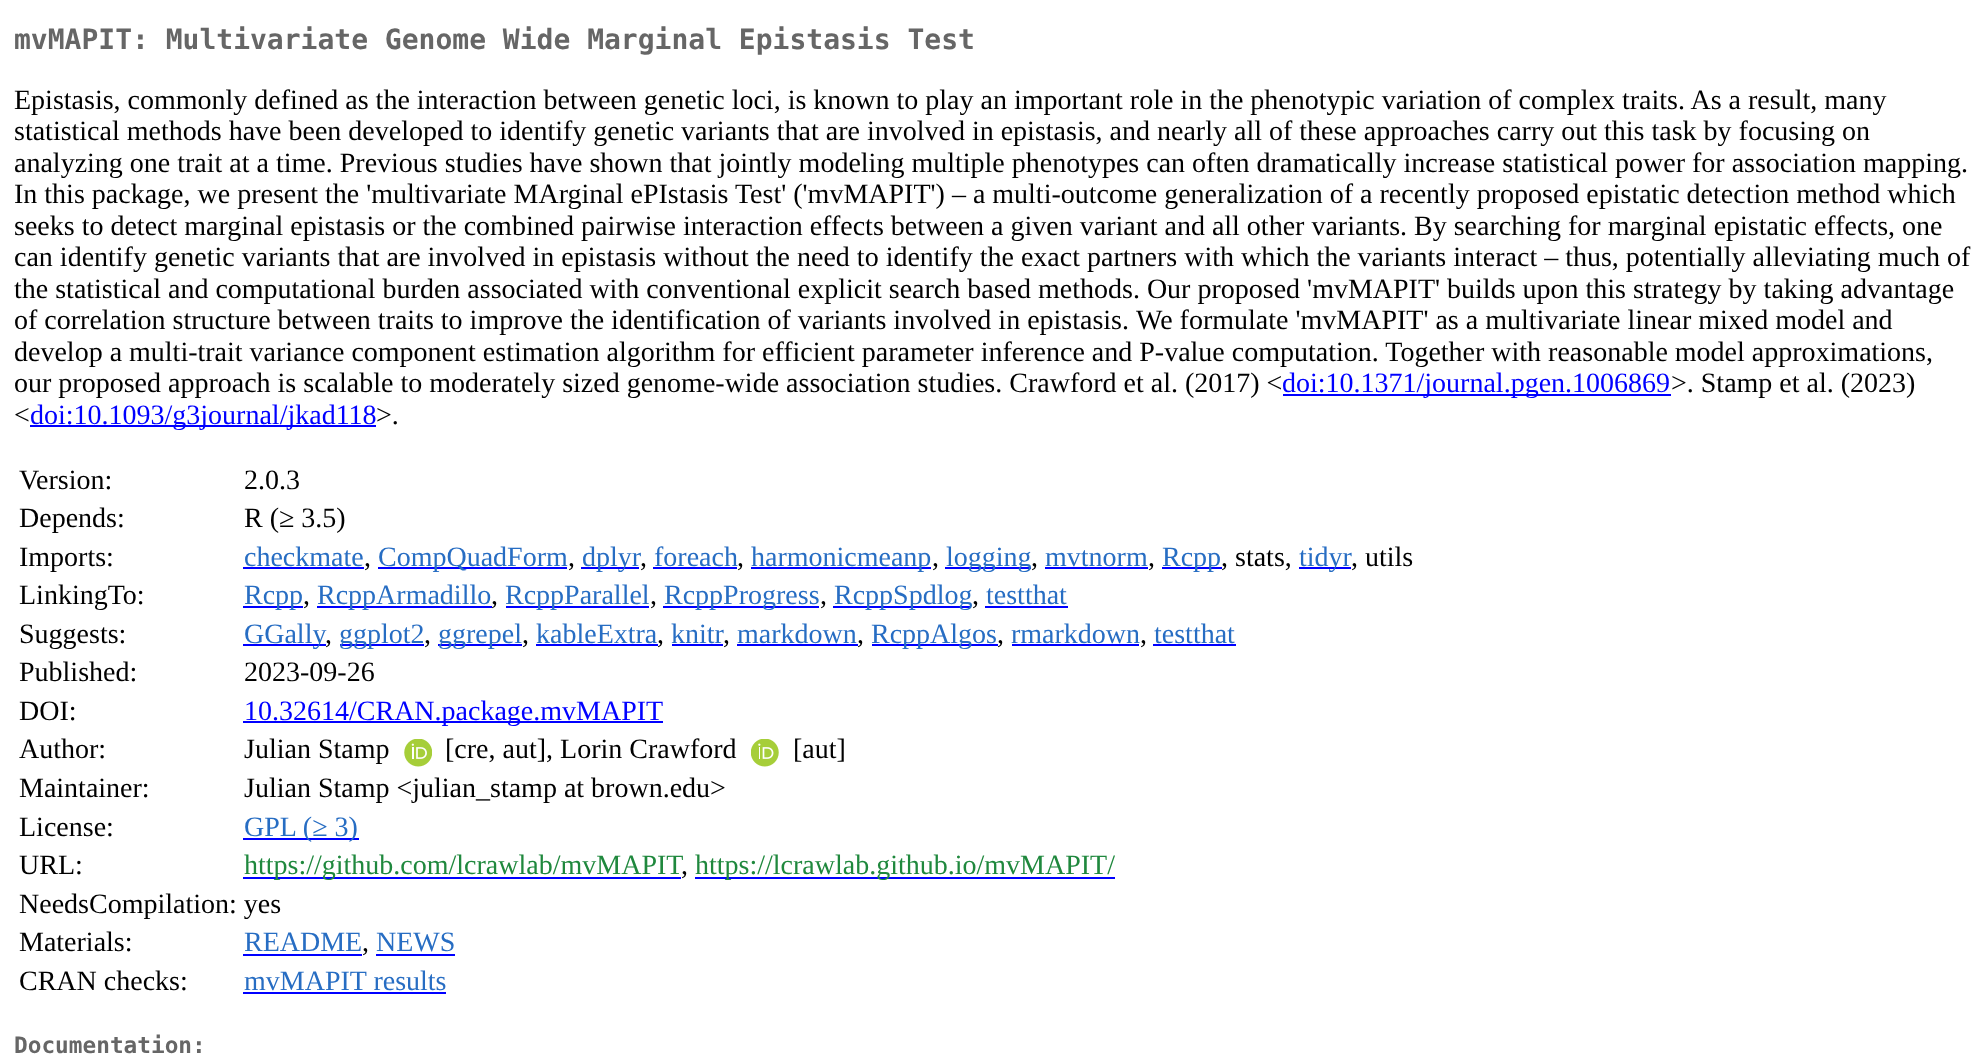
<!DOCTYPE html>
<meta charset="utf-8">
<style>body { margin: 0 } canvas { display: block }</style>
<canvas id="canvas" width="1986" height="1060"></canvas>
<script type="module">
  const canvas = document.getElementById("canvas");
  const g = canvas.getContext("2d");
  g.miterLimit = 4;
  g.fontKerning = "normal";
  function drawText(s, x, y, [font, color]) {
    g.font = font;
    g.fillStyle = color;
    g.fillText(s, x, y);
  }
  function fillBox(x, y, w, h, color) {
    g.fillStyle = color;
    g.fillRect(x, y, w, h);
  }
  async function drawPicture(src, x, y, w, h) {
    const img = new Image();
    img.src = src;
    await img.decode();
    g.drawImage(img, x, y, w, h);
  }

  const s1 = ["bold 28px DejaVu Sans Mono", "#666666"];
  const s2 = ["28px Liberation Serif", "#000000"];
  const s3 = ["28px Liberation Serif", "#0000FF"];
  const s4 = ["28px Liberation Serif", "#276DC3"];
  const s5 = ["28px Liberation Serif", "#1F883D"];
  const s6 = ["bold 22.75px DejaVu Sans Mono", "#666666"];

  fillBox(0, 0, 1986, 1060, "#FFFFFF");
  drawText("mvMAPIT: Multivariate Genome Wide Marginal Epistasis Test", 14, 49, s1);
  drawText("Epistasis, commonly defined as the interaction between genetic loci, is known to play an important role in the phenotypic variation of complex traits. As a result, many", 14, 109, s2);
  drawText("statistical methods have been developed to identify genetic variants that are involved in epistasis, and nearly all of these approaches carry out this task by focusing on", 14, 140, s2);
  drawText("analyzing one trait at a time. Previous studies have shown that jointly modeling multiple phenotypes can often dramatically increase statistical power for association mapping.", 14, 172, s2);
  drawText("In this package, we present the 'multivariate MArginal ePIstasis Test' ('mvMAPIT') – a multi-outcome generalization of a recently proposed epistatic detection method which", 14, 203, s2);
  drawText("seeks to detect marginal epistasis or the combined pairwise interaction effects between a given variant and all other variants. By searching for marginal epistatic effects, one", 14, 235, s2);
  drawText("can identify genetic variants that are involved in epistasis without the need to identify the exact partners with which the variants interact – thus, potentially alleviating much of", 14, 266, s2);
  drawText("the statistical and computational burden associated with conventional explicit search based methods. Our proposed 'mvMAPIT' builds upon this strategy by taking advantage", 14, 298, s2);
  drawText("of correlation structure between traits to improve the identification of variants involved in epistasis.", 14, 329, s2);
  drawText("We formulate 'mvMAPIT' as a multivariate linear mixed model and", 1136, 329, s2);
  drawText("develop a multi-trait variance component estimation algorithm for efficient parameter inference and P-value computation. Together with reasonable model approximations,", 14, 361, s2);
  drawText("our proposed approach is scalable to moderately sized genome-wide association studies. Crawford et al. (2017) <", 14, 392, s2);
  fillBox(1283, 394, 388, 2, "#0000FF");
  drawText("doi:10.1371/journal.pgen.1006869", 1282, 392, s3);
  drawText(">. Stamp et al. (2023)", 1671, 392, s2);
  drawText("<", 14, 424, s2);
  fillBox(30, 425, 346, 2, "#0000FF");
  drawText("doi:10.1093/g3journal/jkad118", 30, 424, s3);
  drawText(">.", 376, 424, s2);
  drawText("Version:", 19, 489, s2);
  drawText("2.0.3", 244, 489, s2);
  drawText("Depends:", 19, 527, s2);
  drawText("R (≥ 3.5)", 244, 527, s2);
  drawText("Imports:", 19, 566, s2);
  drawText("checkmate", 244, 566, s4);
  fillBox(243, 567, 121, 2, "#0000FF");
  drawText(",", 364, 566, s2);
  fillBox(378, 567, 189, 2, "#0000FF");
  drawText("CompQuadForm", 378, 566, s4);
  drawText(",", 568, 566, s2);
  fillBox(581, 567, 58, 2, "#0000FF");
  drawText("dplyr", 582, 566, s4);
  drawText(",", 640, 566, s2);
  drawText("foreach", 654, 566, s4);
  fillBox(653, 567, 84, 2, "#0000FF");
  drawText(",", 737, 566, s2);
  fillBox(751, 567, 180, 2, "#0000FF");
  drawText("harmonicmeanp", 751, 566, s4);
  drawText(",", 932, 566, s2);
  fillBox(945, 567, 86, 2, "#0000FF");
  drawText("logging", 946, 566, s4);
  drawText(",", 1031, 566, s2);
  drawText("mvtnorm", 1045, 566, s4);
  fillBox(1045, 567, 103, 2, "#0000FF");
  drawText(",", 1148, 566, s2);
  fillBox(1162, 567, 60, 2, "#0000FF");
  drawText("Rcpp", 1162, 566, s4);
  drawText(", stats,", 1221, 566, s2);
  fillBox(1299, 567, 52, 2, "#0000FF");
  drawText("tidyr", 1299, 566, s4);
  drawText(", utils", 1351, 566, s2);
  drawText("LinkingTo:", 19, 604, s2);
  fillBox(243, 606, 60, 2, "#0000FF");
  drawText("Rcpp", 244, 604, s4);
  drawText(",", 303, 604, s2);
  fillBox(317, 606, 175, 2, "#0000FF");
  drawText("RcppArmadillo", 317, 604, s4);
  drawText(",", 491, 604, s2);
  fillBox(506, 606, 143, 2, "#0000FF");
  drawText("RcppParallel", 505, 604, s4);
  drawText(",", 650, 604, s2);
  fillBox(663, 606, 156, 2, "#0000FF");
  drawText("RcppProgress", 664, 604, s4);
  drawText(",", 820, 604, s2);
  fillBox(833, 606, 138, 2, "#0000FF");
  drawText("RcppSpdlog", 834, 604, s4);
  drawText(",", 972, 604, s2);
  drawText("testthat", 986, 604, s4);
  fillBox(985, 606, 83, 2, "#0000FF");
  drawText("Suggests:", 19, 643, s2);
  fillBox(243, 644, 83, 2, "#0000FF");
  drawText("GGally", 244, 643, s4);
  drawText(",", 325, 643, s2);
  fillBox(340, 644, 84, 2, "#0000FF");
  drawText("ggplot2", 339, 643, s4);
  drawText(",", 424, 643, s2);
  fillBox(438, 644, 84, 2, "#0000FF");
  drawText("ggrepel", 438, 643, s4);
  drawText(",", 522, 643, s2);
  drawText("kableExtra", 536, 643, s4);
  fillBox(536, 644, 122, 2, "#0000FF");
  drawText(",", 657, 643, s2);
  drawText("knitr", 671, 643, s4);
  fillBox(672, 644, 51, 2, "#0000FF");
  drawText(",", 723, 643, s2);
  drawText("markdown", 737, 643, s4);
  fillBox(737, 644, 121, 2, "#0000FF");
  drawText(",", 857, 643, s2);
  fillBox(872, 644, 126, 2, "#0000FF");
  drawText("RcppAlgos", 871, 643, s4);
  drawText(",", 997, 643, s2);
  drawText("rmarkdown", 1011, 643, s4);
  fillBox(1012, 644, 127, 2, "#0000FF");
  drawText(",", 1140, 643, s2);
  drawText("testthat", 1154, 643, s4);
  fillBox(1153, 644, 83, 2, "#0000FF");
  drawText("Published:", 19, 681, s2);
  drawText("2023-09-26", 244, 681, s2);
  drawText("DOI:", 19, 720, s2);
  fillBox(243, 721, 420, 2, "#0000FF");
  drawText("10.32614/CRAN.package.mvMAPIT", 244, 720, s3);
  drawText("Author:", 19, 758, s2);
  drawText("Julian Stamp", 244, 758, s2);
  await drawPicture("pic1.png", 404, 739, 28, 28);
  drawText("[cre, aut], Lorin Crawford", 445, 758, s2);
  await drawPicture("pic2.png", 751, 739, 28, 28);
  drawText("[aut]", 793, 758, s2);
  drawText("Maintainer:", 19, 797, s2);
  drawText("Julian Stamp <julian_stamp at brown.edu>", 244, 797, s2);
  drawText("License:", 19, 836, s2);
  fillBox(243, 838, 116, 2, "#0000FF");
  drawText("GPL (≥ 3)", 244, 836, s4);
  drawText("URL:", 19, 874, s2);
  fillBox(243, 877, 438, 2, "#0000FF");
  drawText("https://github.com/lcrawlab/mvMAPIT", 244, 874, s5);
  drawText(",", 681, 874, s2);
  fillBox(695, 877, 420, 2, "#0000FF");
  drawText("https://lcrawlab.github.io/mvMAPIT/", 695, 874, s5);
  drawText("NeedsCompilation: yes", 19, 913, s2);
  drawText("Materials:", 19, 951, s2);
  drawText("README", 244, 951, s4);
  fillBox(243, 954, 119, 2, "#0000FF");
  drawText(",", 362, 951, s2);
  drawText("NEWS", 376, 951, s4);
  fillBox(376, 954, 79, 2, "#0000FF");
  drawText("CRAN checks:", 19, 990, s2);
  drawText("mvMAPIT results", 244, 990, s4);
  fillBox(243, 992, 203, 2, "#0000FF");
  drawText("Documentation:", 14, 1053, s6);
</script>
